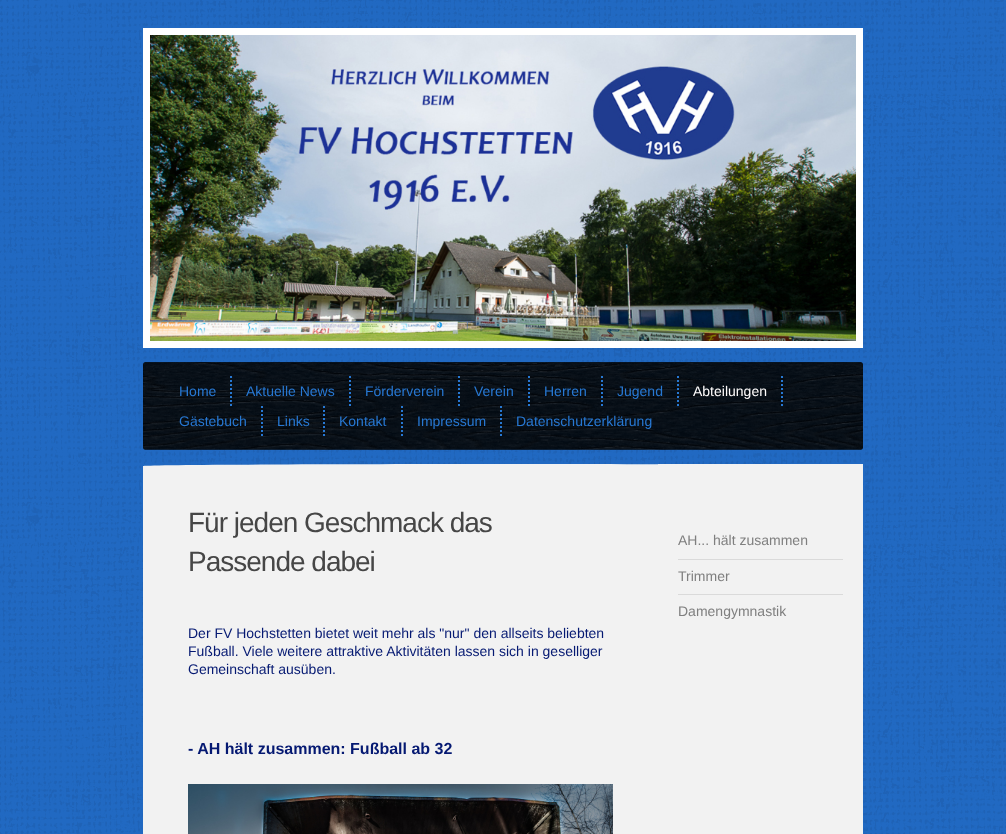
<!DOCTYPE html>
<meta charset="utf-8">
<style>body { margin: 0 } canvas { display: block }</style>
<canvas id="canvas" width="1006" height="834"></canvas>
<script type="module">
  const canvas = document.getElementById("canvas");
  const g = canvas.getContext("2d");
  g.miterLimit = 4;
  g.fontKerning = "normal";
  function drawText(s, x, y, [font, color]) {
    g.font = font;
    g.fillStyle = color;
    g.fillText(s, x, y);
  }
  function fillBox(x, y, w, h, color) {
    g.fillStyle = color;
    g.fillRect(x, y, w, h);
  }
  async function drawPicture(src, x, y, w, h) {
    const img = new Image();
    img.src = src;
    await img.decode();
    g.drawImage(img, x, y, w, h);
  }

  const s1 = ["14px Liberation Sans", "#2778D3"];
  const s2 = ["14px Liberation Sans", "#FFFDFD"];
  const s3 = ["28px Liberation Sans", "#464646"];
  const s4 = ["14px Liberation Sans", "#051972"];
  const s5 = ["bold 16px Liberation Sans", "#051972"];
  const s6 = ["14px Liberation Sans", "#7F7F7F"];

  fillBox(0, 0, 1006, 834, "#2169C2");
  await drawPicture("pic1.png", 0, 0, 1006, 834);
  g.strokeStyle = "#FFFFFF";
  g.lineWidth = 7;
  g.strokeRect(146.5, 31.5, 713, 313);
  await drawPicture("pic2.png", 150, 35, 706, 306);
  await drawPicture("pic3.png", 143, 362, 720, 88);
  g.beginPath();
  g.moveTo(231, 376);
  g.lineTo(231, 406);
  g.strokeStyle = "#2778D3";
  g.lineWidth = 2;
  g.setLineDash([2, 2]);
  g.stroke();
  drawText("Home", 179, 396, s1);
  g.beginPath();
  g.moveTo(350, 376);
  g.lineTo(350, 406);
  g.stroke();
  drawText("Aktuelle News", 246, 396, s1);
  g.beginPath();
  g.moveTo(459, 376);
  g.lineTo(459, 406);
  g.stroke();
  drawText("Förderverein", 365, 396, s1);
  g.beginPath();
  g.moveTo(529, 376);
  g.lineTo(529, 406);
  g.stroke();
  drawText("Verein", 474, 396, s1);
  g.beginPath();
  g.moveTo(602, 376);
  g.lineTo(602, 406);
  g.stroke();
  drawText("Herren", 544, 396, s1);
  g.beginPath();
  g.moveTo(678, 376);
  g.lineTo(678, 406);
  g.stroke();
  drawText("Jugend", 617, 396, s1);
  g.beginPath();
  g.moveTo(782, 376);
  g.lineTo(782, 406);
  g.stroke();
  drawText("Abteilungen", 693, 396, s2);
  g.beginPath();
  g.moveTo(262, 406);
  g.lineTo(262, 436);
  g.stroke();
  drawText("Gästebuch", 179, 426, s1);
  g.beginPath();
  g.moveTo(324, 406);
  g.lineTo(324, 436);
  g.stroke();
  drawText("Links", 277, 426, s1);
  g.beginPath();
  g.moveTo(402, 406);
  g.lineTo(402, 436);
  g.stroke();
  drawText("Kontakt", 339, 426, s1);
  g.beginPath();
  g.moveTo(501, 406);
  g.lineTo(501, 436);
  g.stroke();
  drawText("Impressum", 417, 426, s1);
  drawText("Datenschutzerklärung", 516, 426, s1);
  g.fillStyle = "#F2F2F2";
  g.beginPath();
  g.moveTo(503, 464);
  g.bezierCurveTo(702, 464, 863, 465, 863, 466);
  g.lineTo(863, 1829);
  g.bezierCurveTo(863, 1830, 702, 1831, 503, 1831);
  g.bezierCurveTo(304, 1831, 143, 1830, 143, 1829);
  g.lineTo(143, 466);
  g.bezierCurveTo(143, 465, 304, 464, 503, 464);
  g.closePath();
  g.fill();
  g.letterSpacing = "-1px";
  drawText("Für jeden Geschmack das", 188, 532, s3);
  drawText("Passende dabei", 188, 571, s3);
  g.letterSpacing = "0px";
  drawText("Der FV Hochstetten bietet weit mehr als \"nur\" den allseits beliebten", 188, 638, s4);
  drawText("Fußball. Viele weitere attraktive Aktivitäten lassen sich in geselliger", 188, 656, s4);
  drawText("Gemeinschaft ausüben.", 188, 674, s4);
  drawText("- AH hält zusammen: Fußball ab 32", 188, 754, s5);
  await drawPicture("pic4.png", 188, 784, 425, 50);
  fillBox(658, 464, 205, 2, "#F2F2F2");
  fillBox(678, 559, 165, 1, "#DADADA");
  drawText("AH... hält zusammen", 678, 545, s6);
  fillBox(678, 594, 165, 1, "#DADADA");
  drawText("Trimmer", 678, 581, s6);
  drawText("Damengymnastik", 678, 616, s6);
</script>
